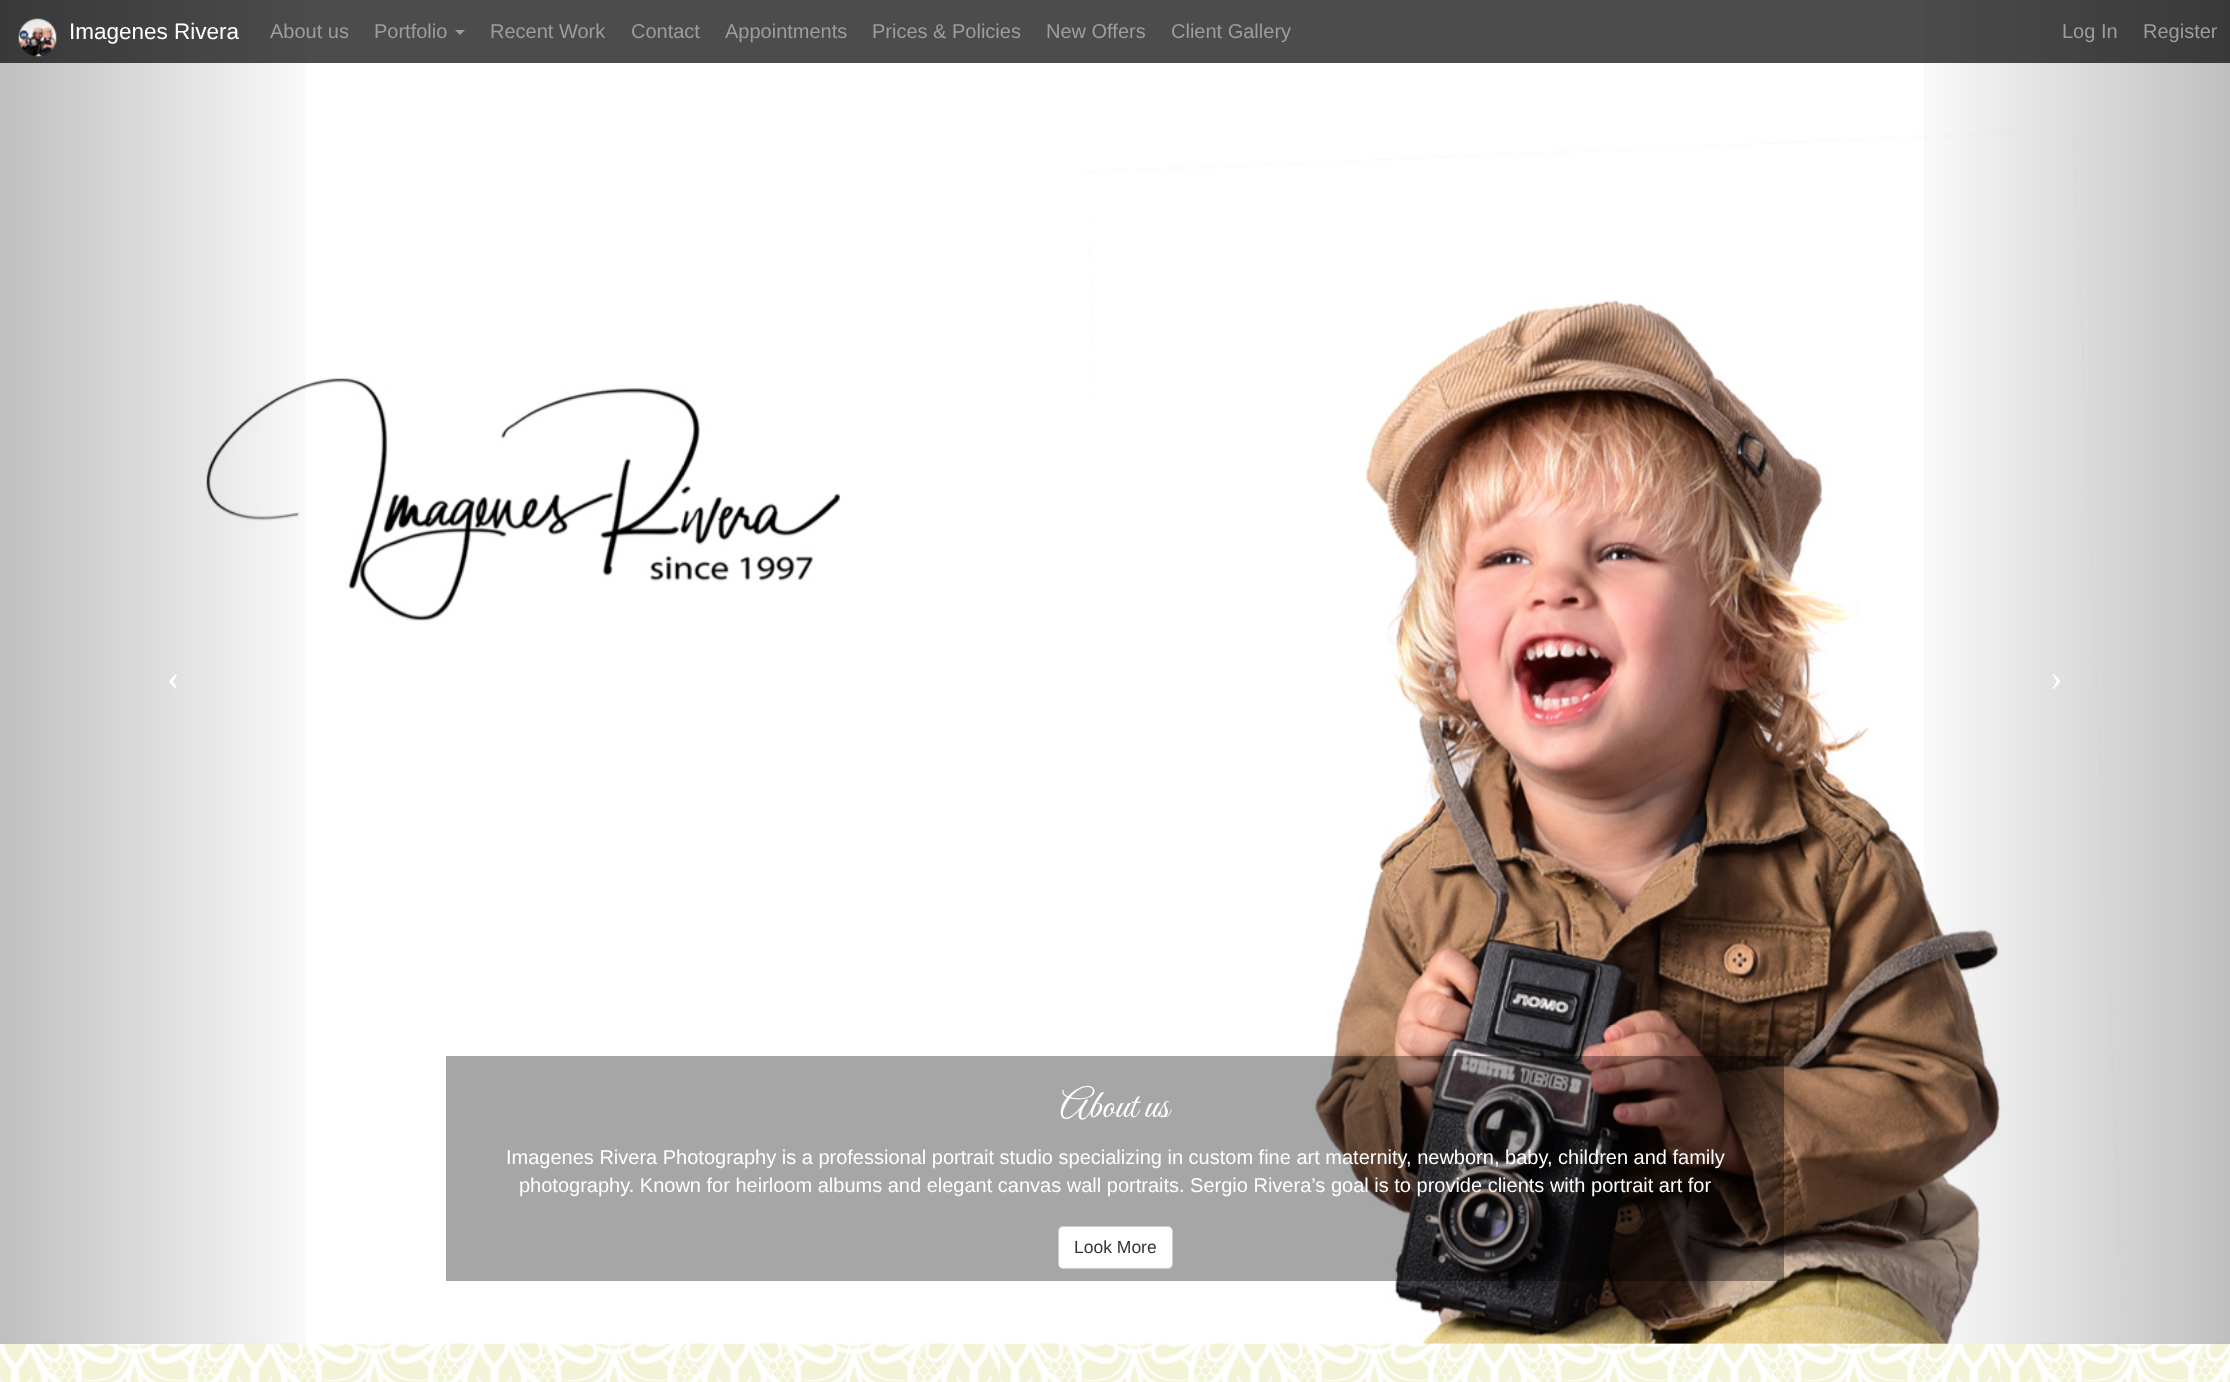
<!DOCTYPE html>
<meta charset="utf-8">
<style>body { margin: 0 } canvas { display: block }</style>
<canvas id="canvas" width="2230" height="1382"></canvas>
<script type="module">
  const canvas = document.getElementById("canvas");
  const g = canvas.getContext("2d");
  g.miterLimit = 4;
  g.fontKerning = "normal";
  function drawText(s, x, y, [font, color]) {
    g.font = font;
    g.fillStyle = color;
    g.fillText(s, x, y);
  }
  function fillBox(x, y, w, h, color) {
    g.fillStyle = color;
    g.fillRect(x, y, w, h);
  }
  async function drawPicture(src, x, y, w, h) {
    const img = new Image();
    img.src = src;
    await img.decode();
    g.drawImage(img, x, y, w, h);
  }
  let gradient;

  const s1 = ["22.5px Liberation Sans", "#FFFFFF"];
  const s2 = ["20px Liberation Sans", "#9D9D9D"];
  const s3 = ["38px Liberation Serif", "#FFFFFF"];
  const s4 = ["40px Great Vibes", "#FFFFFF"];
  const s5 = ["20px Liberation Sans", "#FFFFFF"];
  const s6 = ["17.5px Liberation Sans", "#333333"];

  fillBox(0, 0, 2230, 1382, "#FFFFFF");
  await drawPicture("pic1.png", 0, 1343, 2230, 39);
  await drawPicture("pic3.png", 0, 0, 2230, 1344);
  gradient = g.createLinearGradient(0, 672, 335, 672);
  gradient.addColorStop(0, "rgba(0, 0, 0, 0.25)");
  gradient.addColorStop(1, "rgba(0, 0, 0, 0)");
  g.fillStyle = gradient;
  g.fillRect(0, 0, 306, 1344);
  gradient = g.createLinearGradient(1895, 672, 2230, 672);
  gradient.addColorStop(0, "rgba(0, 0, 0, 0)");
  gradient.addColorStop(1, "rgba(0, 0, 0, 0.25)");
  g.fillStyle = gradient;
  g.fillRect(1924, 0, 306, 1344);
  fillBox(0, 0, 2230, 63, "rgba(0, 0, 0, 0.7)");
  await drawPicture("pic2.png", 18, 18, 39, 39);
  drawText("Imagenes Rivera", 69, 39, s1);
  drawText("About us", 270, 38, s2);
  drawText("Portfolio", 374, 38, s2);
  g.beginPath();
  g.moveTo(455, 30);
  g.lineTo(465, 30);
  g.lineTo(460, 35);
  g.closePath();
  g.fill();
  drawText("Recent Work", 490, 38, s2);
  drawText("Contact", 631, 38, s2);
  drawText("Appointments", 725, 38, s2);
  drawText("Prices & Policies", 872, 38, s2);
  drawText("New Offers", 1046, 38, s2);
  drawText("Client Gallery", 1171, 38, s2);
  drawText("Log In", 2062, 38, s2);
  drawText("Register", 2143, 38, s2);
  drawText("‹", 167, 690, s3);
  drawText("›", 2050, 690, s3);
  fillBox(446, 1056, 1338, 225, "rgba(0, 0, 0, 0.35)");
  drawText("About us", 1060, 1117, s4);
  drawText("Imagenes Rivera Photography is a professional portrait studio specializing in custom fine art maternity, newborn, baby, children and family", 506, 1164, s5);
  drawText("photography. Known for heirloom albums and elegant canvas wall portraits. Sergio Rivera’s goal is to provide clients with portrait art for", 519, 1192, s5);
  g.beginPath();
  g.roundRect(1058.5, 1226.5, 114, 42, 4.5);
  g.fill();
  g.strokeStyle = "#CCCCCC";
  g.stroke();
  drawText("Look More", 1074, 1253, s6);
</script>
